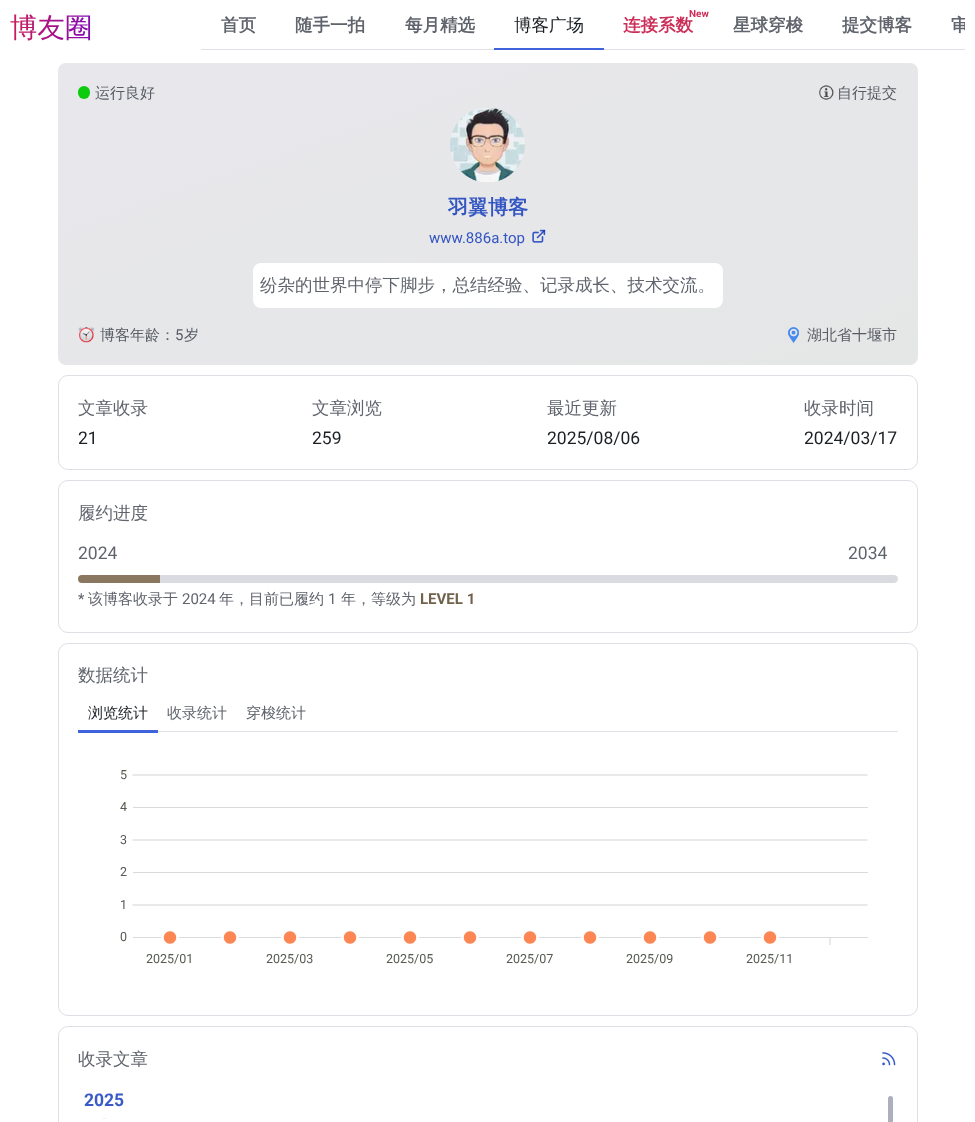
<!DOCTYPE html>
<meta charset="utf-8">
<style>body { margin: 0 } canvas { display: block }</style>
<canvas id="canvas" width="975" height="1122"></canvas>
<script type="module">
  const canvas = document.getElementById("canvas");
  const g = canvas.getContext("2d");
  g.miterLimit = 4;
  g.fontKerning = "normal";
  function drawText(s, x, y, [font, color]) {
    g.font = font;
    g.fillStyle = color;
    g.fillText(s, x, y);
  }
  function fillBox(x, y, w, h, color) {
    g.fillStyle = color;
    g.fillRect(x, y, w, h);
  }
  function fillRounded(x, y, w, h, r, color) {
    g.fillStyle = color;
    g.beginPath();
    g.roundRect(x, y, w, h, r);
    g.fill();
  }
  async function drawPicture(src, x, y, w, h) {
    const img = new Image();
    img.src = src;
    await img.decode();
    g.drawImage(img, x, y, w, h);
  }
  let gradient;

  const s1 = ["bold 17.5px WenQuanYi Zen Hei", "#60646C"];
  const s2 = ["500 17.5px WenQuanYi Zen Hei", "#1C2024"];
  const s3 = ["bold 10px Roboto", "#CB2E58"];
  const s4 = ["bold 17.5px WenQuanYi Zen Hei", "#CB2E58"];
  const s5 = ["500 15px WenQuanYi Zen Hei", "#575C65"];
  const s6 = ["bold 20px WenQuanYi Zen Hei", "#3456C2"];
  const s7 = ["15px Roboto", "#3456C2"];
  const s8 = ["500 17.5px WenQuanYi Zen Hei", "#60646C"];
  const s9 = ["15px Roboto", "#575C65"];
  const s10 = ["17.5px Roboto", "#1C2024"];
  const s11 = ["17.5px Roboto", "#60646C"];
  const s12 = ["15px Roboto", "#60646C"];
  const s13 = ["500 15px WenQuanYi Zen Hei", "#60646C"];
  const s14 = ["bold 15px Roboto", "#71624B"];
  const s15 = ["500 15px WenQuanYi Zen Hei", "#1C2024"];
  const s16 = ["12.5px Roboto", "#555B51"];
  const s17 = ["bold 17.5px Roboto", "#3A5BC7"];

  fillBox(0, 0, 975, 1122, "#FFFFFF");
  g.font = "500 27.5px WenQuanYi Zen Hei";
  gradient = g.createLinearGradient(10, 28, 93, 27);
  gradient.addColorStop(0, "#CD1C57");
  gradient.addColorStop(1, "#7E09B8");
  g.fillStyle = gradient;
  g.fillText("博友圈", 10, 37);
  fillBox(201, 49, 764, 1, "#E0E1E6");
  drawText("首页", 221, 31, s1);
  drawText("随手一拍", 295, 31, s1);
  drawText("每月精选", 405, 31, s1);
  drawText("博客广场", 514, 31, s2);
  fillBox(494, 48, 110, 2, "#3E63DD");
  drawText("New", 689, 17, s3);
  drawText("连接系数", 623, 31, s4);
  drawText("星球穿梭", 733, 31, s1);
  drawText("提交博客", 842, 31, s1);
  g.save();
  g.beginPath();
  g.rect(201, 0, 764, 50);
  g.clip();
  drawText("审", 951, 31, s1);
  g.restore();
  gradient = g.createLinearGradient(393, -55, 582, 483);
  gradient.addColorStop(0, "#E8E8EC");
  gradient.addColorStop(1, "#E5E6E6");
  g.fillStyle = gradient;
  g.beginPath();
  g.roundRect(58, 63, 860, 302, 8);
  g.fill();
  fillRounded(78, 86, 12, 13, 6, "#0DCB0D");
  drawText("运行良好", 95, 98, s5);
  await drawPicture("pic1.png", 819, 85, 15, 15);
  drawText("自行提交", 837, 98, s5);
  await drawPicture("pic2.png", 450, 108, 75, 75);
  drawText("羽翼博客", 448, 214, s6);
  drawText("www.886a.top", 429, 243, s7);
  await drawPicture("pic3.png", 532, 229, 14, 14);
  fillRounded(253, 263, 470, 45, 8, "#FFFFFF");
  drawText("纷杂的世界中停下脚步，总结经验、记录成长、技术交流。", 260, 291, s8);
  await drawPicture("pic4.png", 78, 327, 17, 16);
  drawText("博客年龄：", 100, 340, s5);
  drawText("5", 175, 340, s9);
  drawText("岁", 184, 340, s5);
  await drawPicture("pic5.png", 787, 327, 12, 16);
  drawText("湖北省十堰市", 807, 340, s5);
  g.beginPath();
  g.roundRect(58.5, 375.5, 859, 94, 9.5);
  g.strokeStyle = "#DDDFE5";
  g.stroke();
  drawText("文章收录", 78, 414, s8);
  drawText("21", 78, 444, s10);
  drawText("文章浏览", 312, 414, s8);
  drawText("259", 312, 444, s10);
  drawText("最近更新", 547, 414, s8);
  drawText("2025/08/06", 547, 444, s10);
  drawText("收录时间", 804, 414, s8);
  drawText("2024/03/17", 804, 444, s10);
  fillRounded(78, 575, 820, 8, 4, "#F0F0F3");
  g.fillStyle = "#978365";
  g.beginPath();
  g.roundRect(78, 575, 82, 8, [4, 0, 0, 4]);
  g.fill();
  g.fillStyle = "rgba(0, 0, 45, 0.09)";
  g.beginPath();
  g.moveTo(82, 575);
  g.lineTo(894, 575);
  g.lineTo(897, 576);
  g.bezierCurveTo(899, 579, 897, 583, 894, 583);
  g.lineTo(82, 583);
  g.bezierCurveTo(77, 583, 77, 575, 82, 575);
  g.closePath();
  g.fill();
  g.beginPath();
  g.roundRect(58.5, 480.5, 859, 152, 9.5);
  g.stroke();
  drawText("履约进度", 78, 519, s8);
  drawText("2024", 78, 559, s11);
  drawText("2034", 848, 559, s11);
  drawText("*", 78, 604, s12);
  drawText("该博客收录于", 88, 604, s13);
  drawText("2024", 182, 604, s12);
  drawText("年，目前已履约", 219, 604, s13);
  drawText("1", 328, 604, s12);
  drawText("年，等级为", 341, 604, s13);
  drawText("LEVEL 1", 420, 604, s14);
  fillBox(158, 731, 740, 1, "#E0E1E6");
  fillBox(78, 730, 80, 3, "#3E63DD");
  await drawPicture("pic6.png", 132, 774, 736, 171);
  g.beginPath();
  g.roundRect(58.5, 643.5, 859, 372, 9.5);
  g.stroke();
  drawText("数据统计", 78, 681, s8);
  drawText("浏览统计", 88, 718, s15);
  drawText("收录统计", 167, 718, s13);
  drawText("穿梭统计", 246, 718, s13);
  drawText("5", 120, 779, s16);
  drawText("4", 120, 811, s16);
  drawText("3", 120, 844, s16);
  drawText("2", 120, 876, s16);
  drawText("1", 120, 909, s16);
  drawText("0", 120, 941, s16);
  drawText("2025/01", 146, 963, s16);
  drawText("2025/03", 266, 963, s16);
  drawText("2025/05", 386, 963, s16);
  drawText("2025/07", 506, 963, s16);
  drawText("2025/09", 626, 963, s16);
  drawText("2025/11", 746, 963, s16);
  await drawPicture("pic7.png", 882, 1052, 14, 14);
  fillBox(103, 1118, 3, 1, "#F0F0F0");
  fillRounded(888, 1096, 5, 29, 2.5, "#F0F0F3");
  fillRounded(888, 1096, 5, 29, 2.5, "rgba(0, 8, 48, 0.28)");
  g.beginPath();
  g.roundRect(58.5, 1026.5, 859, 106, 9.5);
  g.stroke();
  drawText("收录文章", 78, 1065, s8);
  drawText("2025", 84, 1106, s17);
</script>
